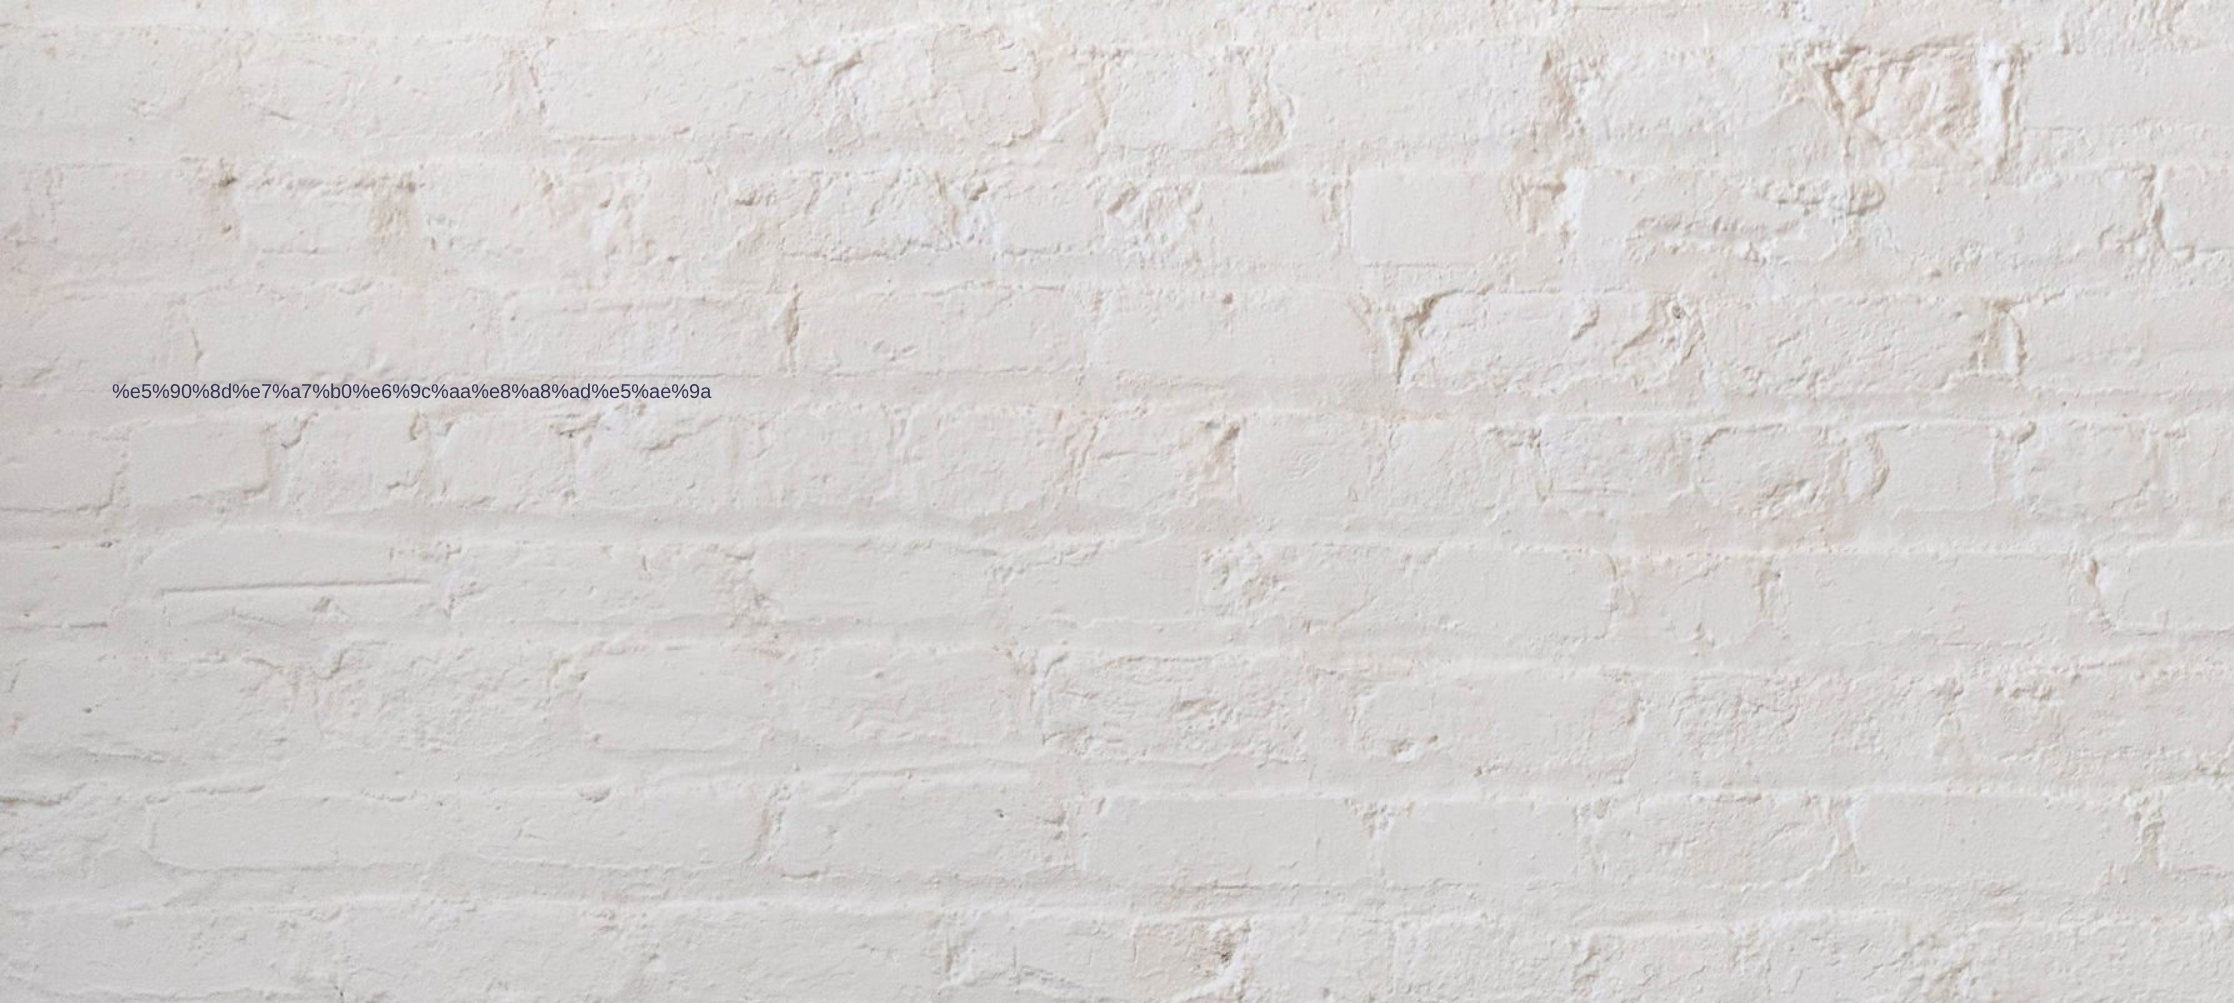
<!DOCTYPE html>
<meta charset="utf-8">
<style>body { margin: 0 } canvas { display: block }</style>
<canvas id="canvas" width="2234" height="1003"></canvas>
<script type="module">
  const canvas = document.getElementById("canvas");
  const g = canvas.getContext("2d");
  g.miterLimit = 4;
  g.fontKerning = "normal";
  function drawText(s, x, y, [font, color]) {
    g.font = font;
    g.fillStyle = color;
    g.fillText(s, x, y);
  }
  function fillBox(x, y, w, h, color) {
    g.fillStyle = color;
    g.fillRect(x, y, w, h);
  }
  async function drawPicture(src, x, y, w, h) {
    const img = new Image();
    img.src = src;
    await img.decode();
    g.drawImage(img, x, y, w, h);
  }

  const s1 = ["20px Liberation Sans", "#333355"];

  fillBox(0, 0, 2234, 1003, "#FFFFFF");
  await drawPicture("pic1.png", 0, 0, 2234, 1003);
  drawText("%e5%90%8d%e7%a7%b0%e6%9c%aa%e8%a8%ad%e5%ae%9a", 112, 398, s1);
</script>
